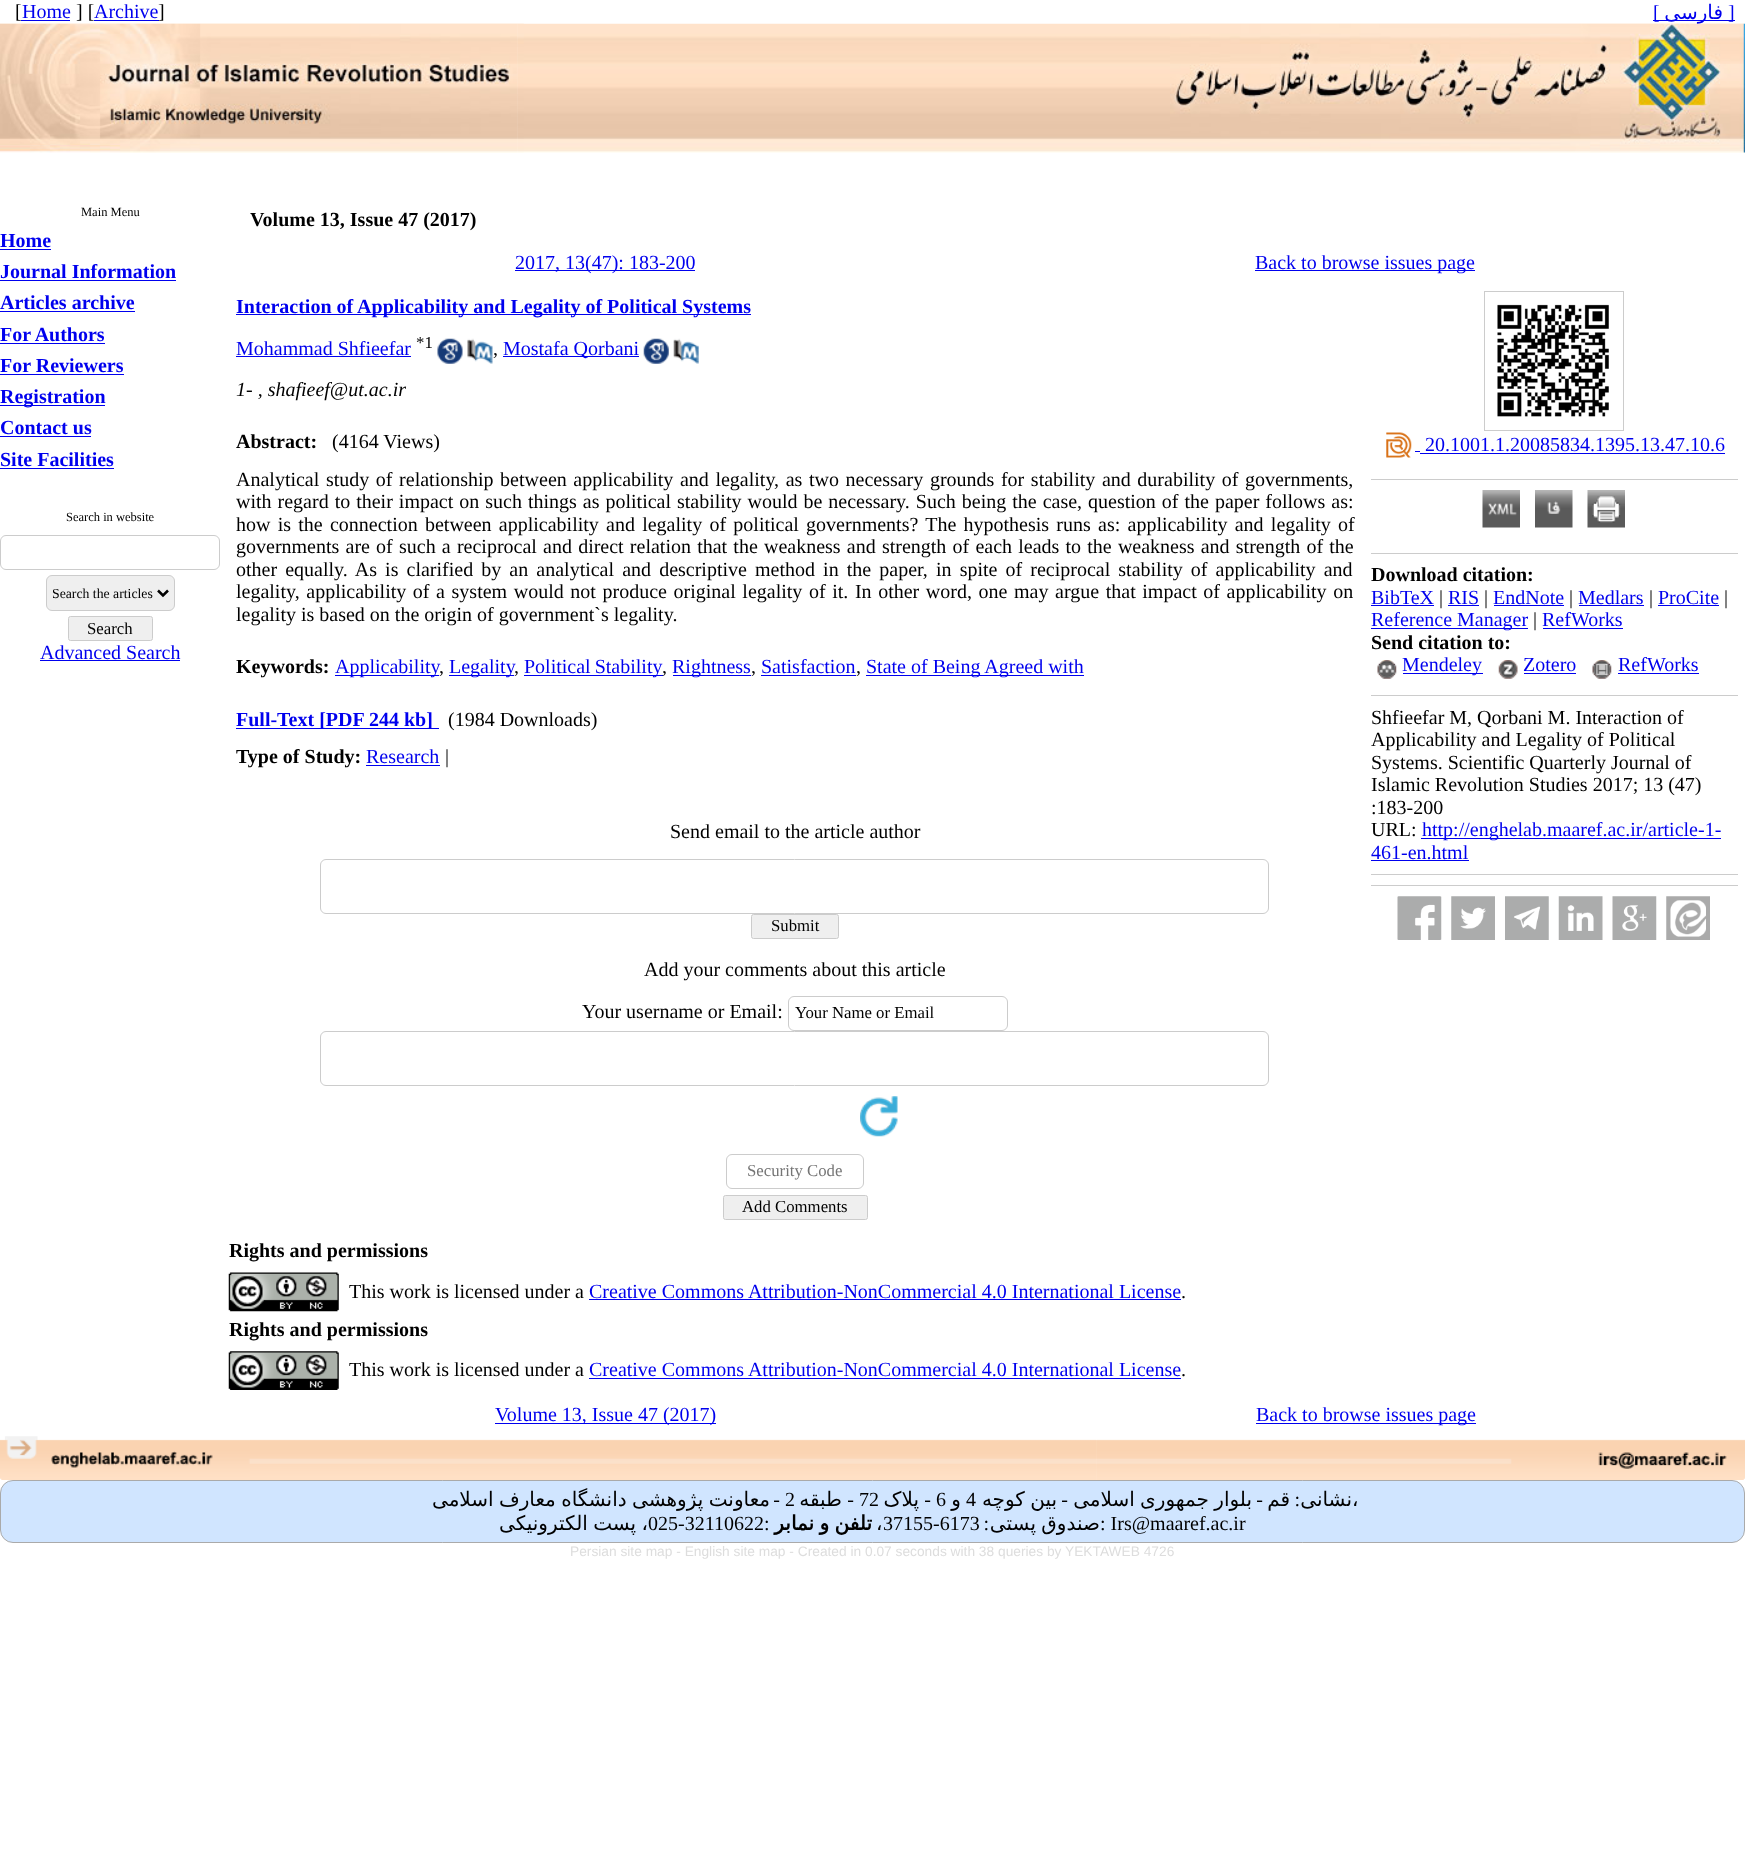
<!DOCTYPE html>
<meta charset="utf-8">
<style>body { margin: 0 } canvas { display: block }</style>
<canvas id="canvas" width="1745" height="1871"></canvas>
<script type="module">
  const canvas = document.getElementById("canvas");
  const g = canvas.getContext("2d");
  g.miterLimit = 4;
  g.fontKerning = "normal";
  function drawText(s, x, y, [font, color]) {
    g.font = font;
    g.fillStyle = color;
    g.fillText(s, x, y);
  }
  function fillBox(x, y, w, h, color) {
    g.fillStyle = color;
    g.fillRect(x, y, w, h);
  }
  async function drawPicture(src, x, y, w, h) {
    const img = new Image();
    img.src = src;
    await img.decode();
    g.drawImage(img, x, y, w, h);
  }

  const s1 = ["20px Liberation Serif", "#000000"];
  const s2 = ["20px Liberation Serif", "#0000EE"];
  const s3 = ["20px DejaVu Sans", "#0000EE"];
  const s4 = ["12.5px Liberation Serif", "#000000"];
  const s5 = ["bold 20px Liberation Serif", "#0000EE"];
  const s6 = ["13.75px Liberation Serif", "#000000"];
  const s7 = ["16.75px Liberation Serif", "#000000"];
  const s8 = ["bold 20px Liberation Serif", "#000000"];
  const s9 = ["italic 20px Liberation Serif", "#000000"];
  const s10 = ["16.75px Liberation Serif", "#757575"];
  const s11 = ["20px DejaVu Sans", "#000000"];
  const s12 = ["bold 20px DejaVu Sans", "#000000"];
  const s13 = ["13.75px Liberation Sans", "#DDDDDD"];

  fillBox(0, 0, 1745, 1871, "#FFFFFF");
  drawText("[", 15, 18, s1);
  drawText("Home", 22, 18, s2);
  fillBox(21, 20, 49, 1, "#0000EE");
  drawText("] [", 76, 18, s1);
  drawText("Archive", 94, 18, s2);
  fillBox(94, 20, 65, 1, "#0000EE");
  drawText("]", 158, 18, s1);
  fillBox(1653, 20, 82, 1, "#0000EE");
  drawText("[", 1653, 19, s2);
  await drawPicture("pic5.png", 1170, 23, 575, 130);
  g.direction = "rtl";
  drawText("فارسی", 1723, 19, s3);
  g.direction = "ltr";
  drawText("]", 1728, 19, s2);
  await drawPicture("pic1.png", 0, 23, 518, 130);
  await drawPicture("pic3.png", 517, 23, 653, 130);
  await drawPicture("pic2.png", 0, 23, 518, 130);
  await drawPicture("pic4.png", 517, 23, 7, 130);
  await drawPicture("pic6.png", 1170, 23, 575, 130);
  drawText("Main Menu", 81, 216, s4);
  drawText("Home", 0, 247, s5);
  fillBox(0, 249, 51, 1, "#0000EE");
  drawText("Journal Information", 0, 278, s5);
  fillBox(0, 280, 176, 1, "#0000EE");
  drawText("Articles archive", 0, 309, s5);
  fillBox(0, 311, 135, 1, "#0000EE");
  drawText("For Authors", 0, 341, s5);
  fillBox(0, 343, 105, 1, "#0000EE");
  drawText("For Reviewers", 0, 372, s5);
  fillBox(0, 374, 124, 1, "#0000EE");
  fillBox(0, 405, 105, 1, "#0000EE");
  drawText("Registration", 0, 403, s5);
  drawText("Contact us", 0, 434, s5);
  fillBox(0, 436, 91, 1, "#0000EE");
  drawText("Site Facilities", 0, 466, s5);
  fillBox(0, 468, 114, 1, "#0000EE");
  drawText("Search in website", 66, 521, s4);
  g.beginPath();
  g.roundRect(0.5, 535.5, 219, 34, 5.5);
  g.strokeStyle = "#CCCCCC";
  g.stroke();
  g.fillStyle = "#EFEFEF";
  g.beginPath();
  g.roundRect(46.5, 575.5, 128, 35, 5.5);
  g.fill();
  g.stroke();
  g.beginPath();
  g.moveTo(158, 590.5);
  g.lineTo(163, 595.5);
  g.lineTo(168, 590.5);
  g.strokeStyle = "#000000";
  g.lineWidth = 2.5;
  g.stroke();
  g.save();
  g.beginPath();
  g.rect(53, 585, 101, 18);
  g.clip();
  drawText("Search the articles", 52, 598, s6);
  g.restore();
  g.beginPath();
  g.roundRect(68.5, 616.5, 84, 24, 2);
  g.fill();
  g.strokeStyle = "#CCCCCC";
  g.lineWidth = 1;
  g.stroke();
  drawText("Search", 87, 634, s7);
  drawText("Advanced Search", 40, 659, s2);
  fillBox(40, 660, 140, 1, "#0000EE");
  drawText("Volume 13, Issue 47 (2017)", 250, 226, s8);
  fillBox(515, 270, 180, 1, "#0000EE");
  drawText("2017, 13(47): 183-200", 515, 269, s2);
  fillBox(1255, 270, 220, 1, "#0000EE");
  drawText("Back to browse issues page", 1255, 269, s2);
  fillBox(236, 314, 515, 1, "#0000EE");
  drawText("Interaction of Applicability and Legality of Political Systems", 236, 313, s5);
  drawText("Mohammad Shfieefar", 236, 355, s2);
  fillBox(236, 356, 175, 1, "#0000EE");
  drawText("*1", 416, 348, s7);
  await drawPicture("pic7.png", 437, 338, 26, 26);
  await drawPicture("pic8.png", 467, 338, 26, 26);
  drawText(",", 493, 355, s1);
  fillBox(503, 356, 136, 1, "#0000EE");
  drawText("Mostafa Qorbani", 503, 355, s2);
  await drawPicture("pic9.png", 643, 338, 26, 26);
  await drawPicture("pic10.png", 673, 338, 26, 26);
  drawText("1- , shafieef@ut.ac.ir", 236, 396, s9);
  drawText("Abstract:", 236, 448, s8);
  drawText("(4164 Views)", 332, 448, s1);
  g.wordSpacing = "1.6px";
  drawText("Analytical study of relationship between applicability and legality, as two necessary grounds for stability and durability of governments,", 236, 486, s1);
  g.wordSpacing = "1px";
  drawText("with regard to their impact on such things as political stability would be necessary. Such being the case, question of the paper follows as:", 236, 508, s1);
  g.wordSpacing = "2.25px";
  drawText("how is the connection between applicability and legality of political governments? The hypothesis runs as: applicability and legality of", 236, 531, s1);
  g.wordSpacing = "1.2px";
  drawText("governments are of such a reciprocal and direct relation that the weakness and strength of each leads to the weakness and strength of the", 236, 553, s1);
  g.wordSpacing = "3.1px";
  drawText("other equally. As is clarified by an analytical and descriptive method in the paper, in spite of reciprocal stability of applicability and", 236, 576, s1);
  g.wordSpacing = "1.6px";
  drawText("legality, applicability of a system would not produce original legality of it. In other word, one may argue that impact of applicability on", 236, 598, s1);
  g.wordSpacing = "0px";
  drawText("legality is based on the origin of government`s legality.", 236, 621, s1);
  drawText("Keywords:", 236, 673, s8);
  fillBox(335, 675, 104, 1, "#0000EE");
  drawText("Applicability", 335, 673, s2);
  fillBox(449, 675, 65, 1, "#0000EE");
  drawText("Legality", 449, 673, s2);
  fillBox(524, 675, 139, 1, "#0000EE");
  g.wordSpacing = "-1px";
  drawText("Political Stability", 524, 673, s2);
  fillBox(673, 675, 78, 1, "#0000EE");
  g.wordSpacing = "0px";
  drawText("Rightness", 672, 673, s2);
  drawText("Satisfaction", 761, 673, s2);
  fillBox(761, 675, 95, 1, "#0000EE");
  fillBox(866, 675, 218, 1, "#0000EE");
  drawText("State of Being Agreed with", 866, 673, s2);
  drawText(",", 439, 673, s1);
  drawText(",", 514, 673, s1);
  drawText(",", 662, 673, s1);
  drawText(",", 751, 673, s1);
  drawText(",", 856, 673, s1);
  fillBox(236, 728, 203, 1, "#0000EE");
  drawText("Full-Text [PDF 244 kb]", 236, 726, s5);
  drawText("(1984 Downloads)", 448, 726, s1);
  drawText("Type of Study:", 236, 763, s8);
  drawText("Research", 366, 763, s2);
  fillBox(366, 765, 74, 1, "#0000EE");
  drawText("|", 445, 763, s1);
  drawText("Send email to the article author", 670, 838, s1);
  g.beginPath();
  g.roundRect(320.5, 859.5, 948, 54, 5.5);
  g.stroke();
  g.fillStyle = "#EFEFEF";
  g.beginPath();
  g.roundRect(751.5, 914.5, 87, 24, 2);
  g.fill();
  g.stroke();
  drawText("Submit", 771, 931, s7);
  drawText("Add your comments about this article", 644, 976, s1);
  drawText("Your username or Email:", 582, 1018, s1);
  g.beginPath();
  g.roundRect(788.5, 996.5, 219, 34, 5.5);
  g.stroke();
  drawText("Your Name or Email", 795, 1018, s7);
  g.beginPath();
  g.roundRect(320.5, 1031.5, 948, 54, 5.5);
  g.stroke();
  await drawPicture("pic11.png", 860, 1096, 38, 41);
  g.beginPath();
  g.roundRect(726.5, 1154.5, 137, 34, 5.5);
  g.stroke();
  drawText("Security Code", 747, 1176, s10);
  g.fillStyle = "#EFEFEF";
  g.beginPath();
  g.roundRect(723.5, 1195.5, 144, 24, 2);
  g.fill();
  g.stroke();
  drawText("Add Comments", 742, 1212, s7);
  g.strokeRect(1484.5, 291.5, 139, 139);
  await drawPicture("pic12.png", 1497, 304, 112, 113);
  await drawPicture("pic13.png", 1386, 432, 26, 26);
  fillBox(1415, 451, 5, 1, "#0000EE");
  drawText("20.1001.1.20085834.1395.13.47.10.6", 1425, 451, s2);
  fillBox(1420, 453, 305, 1, "#0000EE");
  fillBox(1371, 479, 367, 1, "#CCCCCC");
  await drawPicture("pic14.png", 1482, 490, 38, 38);
  await drawPicture("pic15.png", 1535, 490, 38, 38);
  await drawPicture("pic16.png", 1587, 490, 38, 38);
  fillBox(1371, 553, 367, 1, "#CCCCCC");
  drawText("Download citation:", 1371, 581, s8);
  drawText("BibTeX", 1371, 604, s2);
  fillBox(1371, 605, 63, 1, "#0000EE");
  drawText("|", 1439, 604, s1);
  drawText("RIS", 1448, 604, s2);
  fillBox(1448, 605, 31, 1, "#0000EE");
  drawText("|", 1484, 604, s1);
  drawText("EndNote", 1493, 604, s2);
  fillBox(1494, 605, 70, 1, "#0000EE");
  drawText("|", 1569, 604, s1);
  drawText("Medlars", 1578, 604, s2);
  fillBox(1579, 605, 65, 1, "#0000EE");
  drawText("|", 1649, 604, s1);
  drawText("ProCite", 1658, 604, s2);
  fillBox(1658, 605, 61, 1, "#0000EE");
  drawText("|", 1724, 604, s1);
  fillBox(1371, 628, 157, 1, "#0000EE");
  drawText("Reference Manager", 1371, 626, s2);
  drawText("|", 1533, 626, s1);
  drawText("RefWorks", 1542, 626, s2);
  fillBox(1543, 628, 80, 1, "#0000EE");
  drawText("Send citation to:", 1371, 649, s8);
  await drawPicture("pic17.png", 1377, 660, 20, 19);
  fillBox(1403, 673, 80, 1, "#0000EE");
  drawText("Mendeley", 1402, 671, s2);
  await drawPicture("pic18.png", 1498, 660, 20, 19);
  drawText("Zotero", 1523, 671, s2);
  fillBox(1524, 673, 52, 1, "#0000EE");
  await drawPicture("pic19.png", 1592, 660, 20, 19);
  drawText("RefWorks", 1618, 671, s2);
  fillBox(1618, 673, 81, 1, "#0000EE");
  fillBox(1371, 695, 367, 1, "#CCCCCC");
  drawText("Shfieefar M, Qorbani M. Interaction of", 1371, 724, s1);
  drawText("Applicability and Legality of Political", 1371, 746, s1);
  drawText("Systems. Scientific Quarterly Journal of", 1371, 769, s1);
  drawText("Islamic Revolution Studies 2017; 13 (47)", 1371, 791, s1);
  drawText(":183-200", 1371, 814, s1);
  drawText("URL:", 1371, 836, s1);
  fillBox(1421, 838, 300, 1, "#0000EE");
  drawText("http://enghelab.maaref.ac.ir/article-1-", 1422, 836, s2);
  drawText("461-en.html", 1371, 859, s2);
  fillBox(1371, 860, 98, 1, "#0000EE");
  fillBox(1371, 874, 367, 1, "#CCCCCC");
  fillBox(1371, 885, 367, 1, "#CCCCCC");
  await drawPicture("pic20.png", 1397, 896, 45, 44);
  await drawPicture("pic21.png", 1451, 896, 44, 44);
  await drawPicture("pic22.png", 1505, 896, 44, 44);
  await drawPicture("pic23.png", 1558, 896, 45, 44);
  await drawPicture("pic24.png", 1612, 896, 45, 44);
  await drawPicture("pic25.png", 1666, 896, 44, 44);
  drawText("Rights and permissions", 229, 1257, s8);
  await drawPicture("pic26.png", 228, 1272, 111, 40);
  drawText("This work is licensed under a", 349, 1298, s1);
  drawText("Creative Commons Attribution-NonCommercial 4.0 International License", 589, 1298, s2);
  fillBox(589, 1299, 592, 1, "#0000EE");
  drawText(".", 1181, 1298, s1);
  drawText("Rights and permissions", 229, 1336, s8);
  await drawPicture("pic27.png", 228, 1351, 111, 39);
  drawText("This work is licensed under a", 349, 1376, s1);
  drawText("Creative Commons Attribution-NonCommercial 4.0 International License", 589, 1376, s2);
  fillBox(589, 1378, 592, 1, "#0000EE");
  drawText(".", 1181, 1376, s1);
  fillBox(495, 1423, 221, 1, "#0000EE");
  drawText("Volume 13, Issue 47 (2017)", 495, 1421, s2);
  fillBox(1256, 1423, 220, 1, "#0000EE");
  drawText("Back to browse issues page", 1256, 1421, s2);
  await drawPicture("pic28.png", 250, 1439, 847, 41);
  await drawPicture("pic29.png", 0, 1436, 250, 44);
  await drawPicture("pic30.png", 1096, 1439, 649, 41);
  await drawPicture("pic31.png", 1096, 1440, 649, 40);
  g.fillStyle = "#D0E5FF";
  g.beginPath();
  g.roundRect(0.5, 1480.5, 1744, 62, 12.5);
  g.fill();
  g.strokeStyle = "#AAAAAA";
  g.stroke();
  g.wordSpacing = "-1px";
  g.direction = "rtl";
  drawText("معاونت پژوهشی دانشگاه معارف اسلامی", 770, 1506, s11);
  g.wordSpacing = "0px";
  drawText("-", 780, 1506, s1);
  g.direction = "ltr";
  drawText("2", 785, 1506, s1);
  g.direction = "rtl";
  drawText("طبقه", 842, 1506, s11);
  drawText("-", 854, 1506, s1);
  g.direction = "ltr";
  drawText("72", 859, 1506, s1);
  g.direction = "rtl";
  drawText("پلاک", 919, 1506, s11);
  drawText("-", 931, 1506, s1);
  g.direction = "ltr";
  drawText("6", 936, 1506, s1);
  g.direction = "rtl";
  drawText("و", 961, 1506, s11);
  g.direction = "ltr";
  drawText("4", 966, 1506, s1);
  g.wordSpacing = "-1px";
  g.direction = "rtl";
  drawText("بین کوچه", 1057, 1506, s11);
  g.wordSpacing = "0px";
  drawText("-", 1068, 1506, s1);
  g.wordSpacing = "-1px";
  drawText("بلوار جمهوری اسلامی", 1252, 1506, s11);
  g.wordSpacing = "0px";
  drawText("-", 1263, 1506, s1);
  drawText("قم", 1290, 1506, s11);
  drawText(":", 1300, 1506, s1);
  drawText("نشانی", 1352, 1506, s11);
  g.direction = "ltr";
  drawText("،", 1352, 1506, s11);
  g.wordSpacing = "-1px";
  g.direction = "rtl";
  drawText("، پست الکترونیکی", 648, 1530, s11);
  g.wordSpacing = "0px";
  g.direction = "ltr";
  drawText("025-32110622:", 648, 1530, s1);
  g.wordSpacing = "-1px";
  g.direction = "rtl";
  drawText("تلفن و نمابر", 872, 1530, s12);
  g.wordSpacing = "0px";
  g.direction = "ltr";
  drawText("،", 876, 1530, s11);
  drawText("37155-6173", 883, 1530, s1);
  g.direction = "rtl";
  drawText(":", 989, 1530, s1);
  g.wordSpacing = "-1px";
  drawText("صندوق پستی", 1100, 1530, s11);
  g.wordSpacing = "0px";
  g.direction = "ltr";
  drawText(": Irs@maaref.ac.ir", 1100, 1530, s1);
  drawText("Persian site map - English site map - Created in 0.07 seconds with 38 queries by YEKTAWEB 4726", 570, 1556, s13);
</script>
